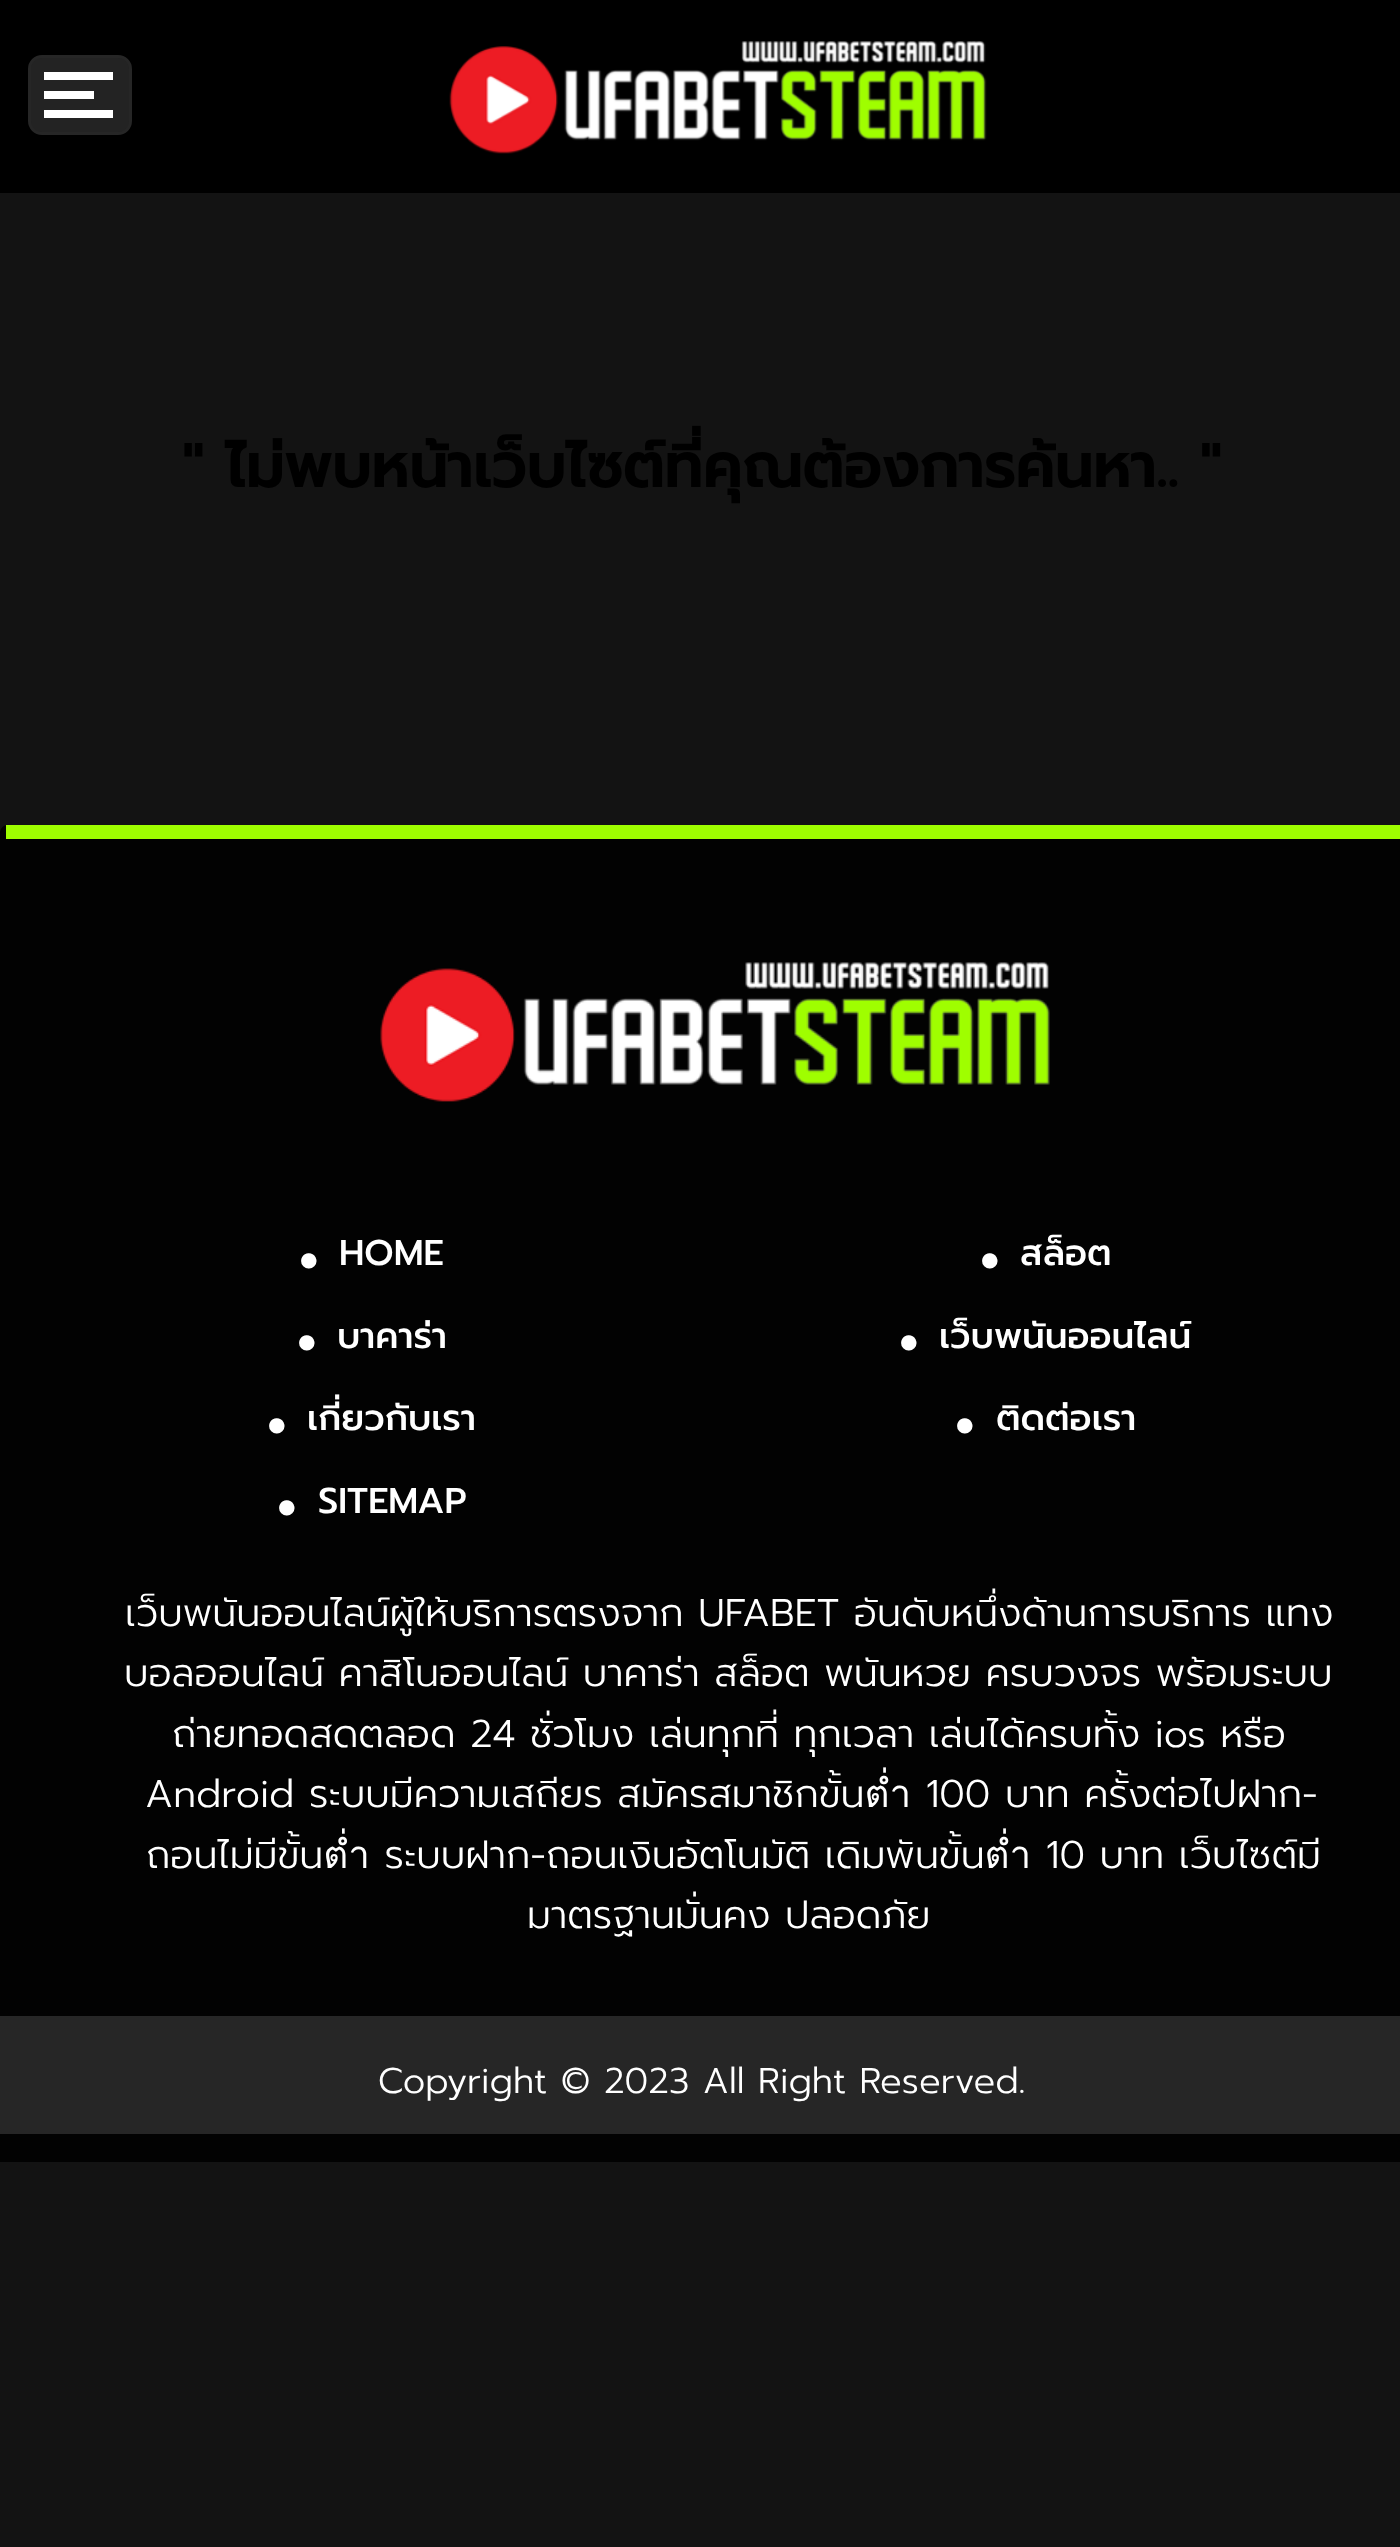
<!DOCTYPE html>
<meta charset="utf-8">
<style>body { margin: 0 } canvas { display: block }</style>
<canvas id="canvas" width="1400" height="2547"></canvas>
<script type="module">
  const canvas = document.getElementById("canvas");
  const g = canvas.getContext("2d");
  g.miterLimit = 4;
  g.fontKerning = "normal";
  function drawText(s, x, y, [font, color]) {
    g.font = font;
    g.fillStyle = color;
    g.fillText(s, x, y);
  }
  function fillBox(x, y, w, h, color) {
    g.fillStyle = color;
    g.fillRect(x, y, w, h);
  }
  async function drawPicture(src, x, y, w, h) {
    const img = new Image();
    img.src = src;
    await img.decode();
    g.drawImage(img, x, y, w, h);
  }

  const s1 = ["bold 60.5px Prompt", "#000000"];
  const s2 = ["35.75px Liberation Sans", "#FFFFFF"];
  const s3 = ["500 35.75px Prompt", "#FFFFFF"];
  const s4 = ["300 38.5px Prompt", "#FFFFFF"];
  const s5 = ["300 35.75px Prompt", "#FFFFFF"];

  fillBox(0, 0, 1400, 2547, "#131313");
  fillBox(0, 0, 1400, 193, "#000000");
  g.fillStyle = "#232323";
  g.beginPath();
  g.roundRect(29.5, 56.5, 101, 77, 12.5);
  g.fill();
  g.strokeStyle = "#262626";
  g.lineWidth = 3;
  g.stroke();
  fillBox(44, 72, 69, 8, "#FFFFFF");
  fillBox(44, 91, 50, 8, "#FFFFFF");
  fillBox(44, 110, 69, 8, "#FFFFFF");
  await drawPicture("pic1.png", 449, 41, 538, 113);
  drawText("\" ไม่พบหน้าเว็บไซต์ที่คุณต้องการค้นหา.. \"", 182, 487, s1);
  g.fillStyle = "#020202";
  g.beginPath();
  g.moveTo(8, 825);
  g.lineTo(1395, 825);
  g.bezierCurveTo(1399.5, 825, 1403, 828.5, 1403, 833);
  g.lineTo(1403, 2162);
  g.lineTo(0, 2162);
  g.lineTo(0, 833);
  g.bezierCurveTo(0, 828.5, 3.5, 825, 8, 825);
  g.closePath();
  g.fill();
  fillBox(6, 825, 1394, 14, "#9FFE00");
  await drawPicture("pic2.png", 380, 962, 670, 140);
  drawText("●", 298, 1271, s2);
  drawText("HOME", 339, 1265, s3);
  drawText("●", 979, 1271, s2);
  drawText("สล็อต", 1020, 1265, s3);
  drawText("●", 296, 1353, s2);
  drawText("บาคาร่า", 337, 1348, s3);
  drawText("●", 898, 1353, s2);
  drawText("เว็บพนันออนไลน์", 939, 1348, s3);
  drawText("●", 266, 1436, s2);
  drawText("เกี่ยวกับเรา", 307, 1430, s3);
  drawText("●", 954, 1436, s2);
  drawText("ติดต่อเรา", 996, 1430, s3);
  drawText("●", 276, 1518, s2);
  drawText("SITEMAP", 318, 1513, s3);
  drawText("เว็บพนันออนไลน์ผู้ให้บริการตรงจาก UFABET อันดับหนึ่งด้านการบริการ แทง", 125, 1626, s4);
  drawText("บอลออนไลน์ คาสิโนออนไลน์ บาคาร่า สล็อต พนันหวย ครบวงจร พร้อมระบบ", 124, 1686, s4);
  drawText("ถ่ายทอดสดตลอด 24 ชั่วโมง เล่นทุกที่ ทุกเวลา เล่นได้ครบทั้ง ios หรือ", 172, 1747, s4);
  drawText("Android ระบบมีความเสถียร สมัครสมาชิกขั้นต่ำ 100 บาท ครั้งต่อไปฝาก-", 145, 1807, s4);
  drawText("ถอนไม่มีขั้นต่ำ ระบบฝาก-ถอนเงินอัตโนมัติ เดิมพันขั้นต่ำ 10 บาท เว็บไซต์มี", 146, 1868, s4);
  drawText("มาตรฐานมั่นคง ปลอดภัย", 527, 1928, s4);
  fillBox(0, 2016, 1400, 118, "#262626");
  drawText("Copyright © 2023 All Right Reserved.", 378, 2093, s5);
</script>
